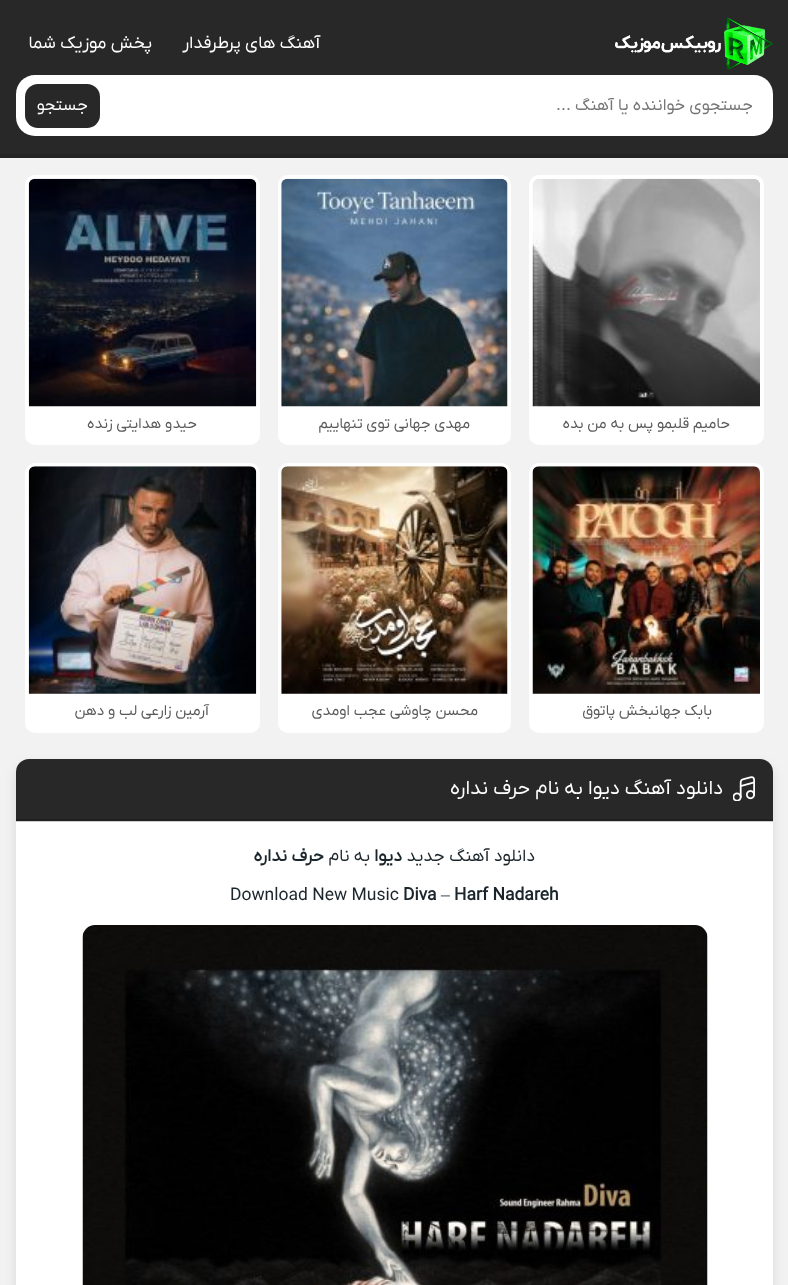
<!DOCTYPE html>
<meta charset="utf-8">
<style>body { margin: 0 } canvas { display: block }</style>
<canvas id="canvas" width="788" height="1285"></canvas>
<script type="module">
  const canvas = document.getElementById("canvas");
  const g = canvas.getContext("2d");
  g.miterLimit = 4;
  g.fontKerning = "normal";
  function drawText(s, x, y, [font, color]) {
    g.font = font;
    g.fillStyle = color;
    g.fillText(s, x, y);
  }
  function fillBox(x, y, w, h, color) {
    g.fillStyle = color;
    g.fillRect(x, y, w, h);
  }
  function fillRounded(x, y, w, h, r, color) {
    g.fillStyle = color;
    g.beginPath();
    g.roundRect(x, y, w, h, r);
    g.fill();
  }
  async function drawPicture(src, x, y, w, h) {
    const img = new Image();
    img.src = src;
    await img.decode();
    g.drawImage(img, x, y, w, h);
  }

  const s1 = ["17.5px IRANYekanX", "#FFFFFF"];
  const s2 = ["16.75px IRANYekanX", "#757575"];
  const s3 = ["16.75px IRANYekanX", "#FFFFFF"];
  const s4 = ["15px IRANYekanX", "#595959"];
  const s5 = ["20px IRANYekanX", "#FFFFFF"];
  const s6 = ["17.5px IRANYekanX", "#1B262C"];
  const s7 = ["bold 17.5px IRANYekanX", "#1B262C"];
  const s8 = ["17.5px Liberation Serif", "#1B262C"];

  fillBox(0, 0, 788, 1285, "#F2F2F2");
  fillBox(0, 0, 788, 154, "#282828");
  fillBox(0, 154, 788, 4, "#242424");
  await drawPicture("pic1.png", 615, 18, 158, 52);
  g.direction = "rtl";
  drawText("آهنگ های پرطرفدار", 320, 48, s1);
  drawText("پخش موزیک شما", 152, 48, s1);
  fillRounded(16, 75, 757, 61, 19, "#FFFFFF");
  drawText("جستجوی خواننده یا آهنگ ...", 753, 110, s2);
  fillRounded(25, 84, 75, 44, 13, "#282828");
  drawText("جستجو", 88, 110, s3);
  g.beginPath();
  g.roundRect(531, 177, 231, 266, 8);
  g.fill();
  g.strokeStyle = "#FFFFFF";
  g.lineWidth = 4;
  g.stroke();
  await drawPicture("pic2.png", 532, 178, 228, 229);
  drawText("حامیم قلبمو پس به من بده", 730, 428, s4);
  g.fillStyle = "#FFFFFF";
  g.beginPath();
  g.roundRect(280, 177, 229, 266, 8);
  g.fill();
  g.stroke();
  await drawPicture("pic3.png", 281, 178, 227, 229);
  drawText("مهدی جهانی توی تنهاییم", 470, 428, s4);
  g.fillStyle = "#FFFFFF";
  g.beginPath();
  g.roundRect(27, 177, 231, 266, 8);
  g.fill();
  g.stroke();
  await drawPicture("pic4.png", 28, 178, 229, 229);
  drawText("حیدو هدایتی زنده", 197, 428, s4);
  g.fillStyle = "#FFFFFF";
  g.beginPath();
  g.roundRect(531, 465, 231, 266, 8);
  g.fill();
  g.stroke();
  await drawPicture("pic5.png", 532, 466, 228, 228);
  drawText("بابک جهانبخش پاتوق", 712, 715, s4);
  g.fillStyle = "#FFFFFF";
  g.beginPath();
  g.roundRect(280, 465, 229, 266, 8);
  g.fill();
  g.stroke();
  await drawPicture("pic6.png", 281, 466, 227, 228);
  drawText("محسن چاوشی عجب اومدی", 478, 715, s4);
  g.fillStyle = "#FFFFFF";
  g.beginPath();
  g.roundRect(27, 465, 231, 266, 8);
  g.fill();
  g.stroke();
  await drawPicture("pic7.png", 28, 466, 229, 228);
  drawText("آرمین زارعی لب و دهن", 209, 715, s4);
  g.fillStyle = "rgba(0, 0, 0, 0.1)";
  g.filter = "blur(6px)";
  g.beginPath();
  g.roundRect(16, 765, 757, 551, 13);
  g.fill();
  g.filter = "none";
  fillRounded(16, 759, 757, 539, 13, "#FFFFFF");
  g.fillStyle = "#282828";
  g.beginPath();
  g.roundRect(16, 759, 757, 62, [13, 13, 0, 0]);
  g.fill();
  fillBox(16, 819, 757, 3, "rgba(0, 0, 0, 0.2)");
  await drawPicture("pic8.png", 733, 776, 22, 25);
  drawText("دانلود آهنگ دیوا به نام حرف نداره", 723, 794, s5);
  drawText("دانلود آهنگ جدید", 535, 861, s6);
  drawText("دیوا", 402, 861, s7);
  drawText("به نام", 370, 861, s6);
  drawText("حرف نداره", 324, 861, s7);
  g.direction = "ltr";
  drawText("Harf Nadareh", 454, 900, s7);
  drawText("–", 441, 900, s8);
  drawText("Diva", 403, 900, s7);
  drawText("Download New Music", 230, 900, s6);
  await drawPicture("pic9.png", 82, 925, 626, 360);
</script>
